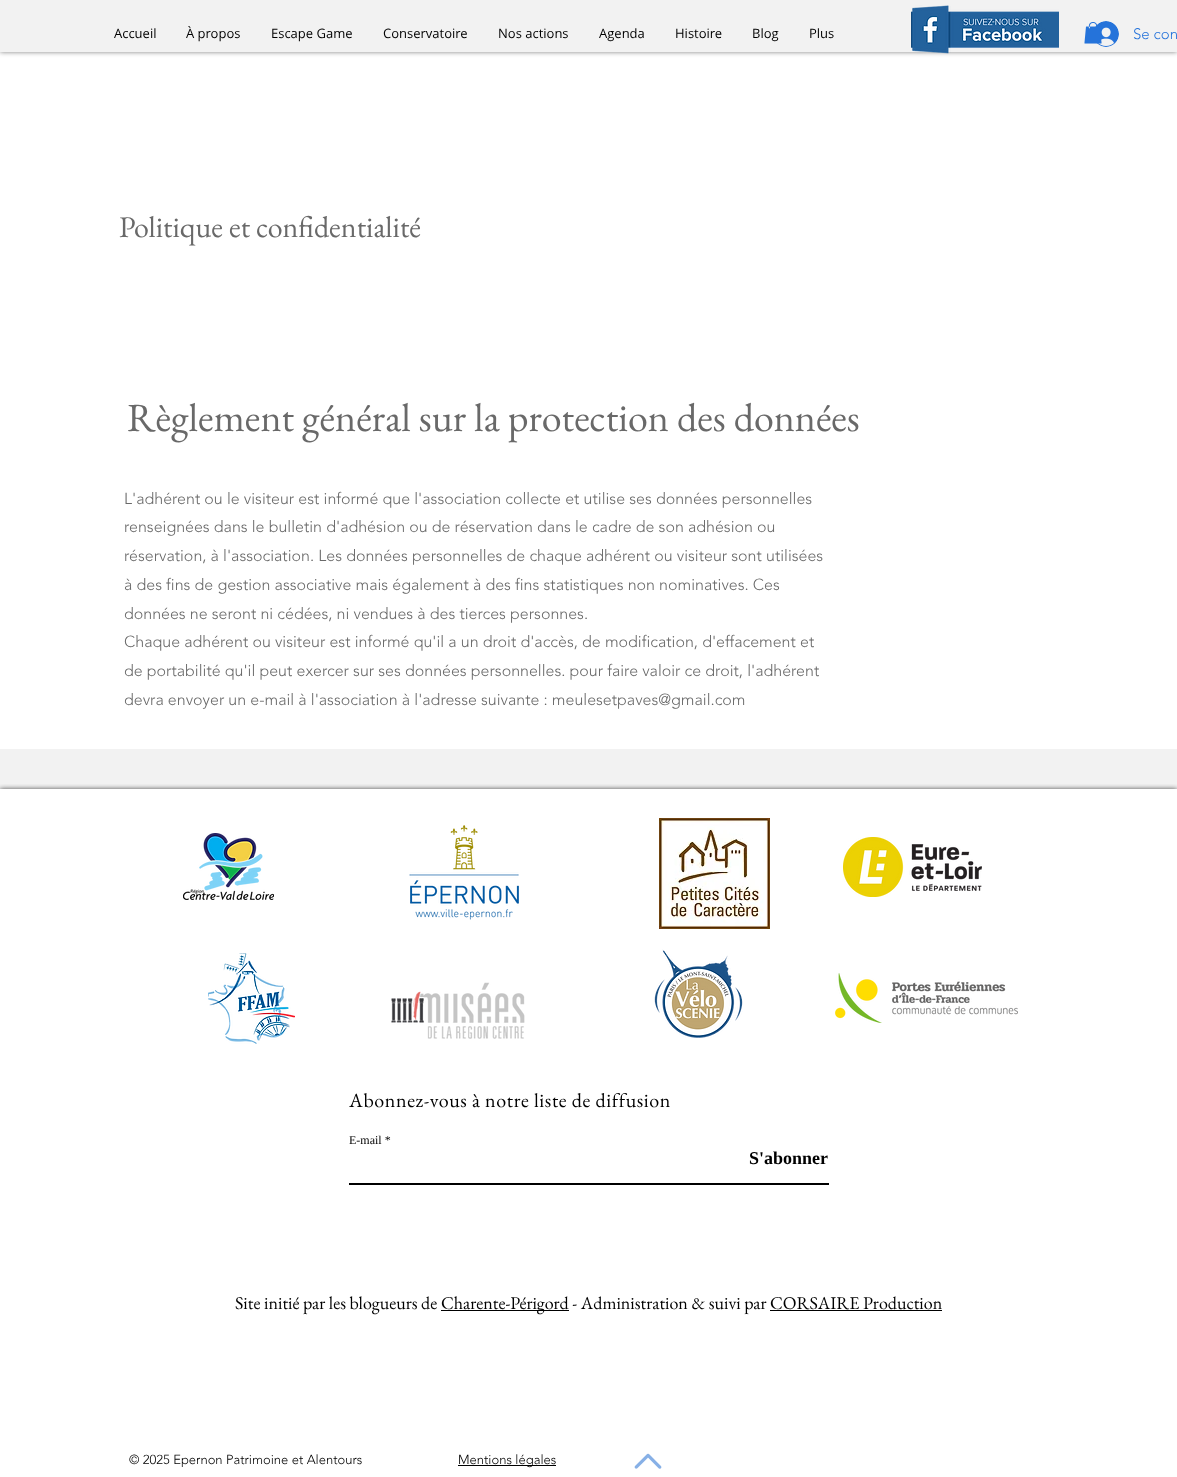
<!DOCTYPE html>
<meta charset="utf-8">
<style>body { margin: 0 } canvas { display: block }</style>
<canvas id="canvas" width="1177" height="1477"></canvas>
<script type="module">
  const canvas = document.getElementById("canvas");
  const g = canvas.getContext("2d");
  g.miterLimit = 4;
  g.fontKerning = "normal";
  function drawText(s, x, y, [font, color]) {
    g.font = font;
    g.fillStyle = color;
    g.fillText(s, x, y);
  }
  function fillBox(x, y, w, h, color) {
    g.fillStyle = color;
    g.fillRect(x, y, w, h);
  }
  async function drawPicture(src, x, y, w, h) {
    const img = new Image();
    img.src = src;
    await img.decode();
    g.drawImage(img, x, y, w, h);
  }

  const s1 = ["13px Open Sans", "#000000"];
  const s2 = ["300 15px 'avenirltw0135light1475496'", "#2573DA"];
  const s3 = ["30px EB Garamond", "#696969"];
  const s4 = ["40px EB Garamond", "#696969"];
  const s5 = ["300 16px 'avenirltw0135light1475496'", "#696969"];
  const s6 = ["20px EB Garamond", "#000000"];
  const s7 = ["12px Liberation Serif", "#000000"];
  const s8 = ["bold 18px Liberation Serif", "#000000"];
  const s9 = ["18px EB Garamond", "#000000"];
  const s10 = ["300 13px 'avenirltw0135light1475496'", "#000000"];

  fillBox(0, 0, 1177, 1477, "#FFFFFF");
  g.fillStyle = "rgba(0, 0, 0, 0.5)";
  g.filter = "blur(2.5px)";
  g.beginPath();
  g.rect(0, 0, 1177, 52);
  g.fill();
  g.filter = "none";
  fillBox(0, 0, 1177, 52, "#F2F2F2");
  drawText("Accueil", 114, 38, s1);
  drawText("À propos", 186, 38, s1);
  drawText("Escape Game", 271, 38, s1);
  drawText("Conservatoire", 383, 38, s1);
  drawText("Nos actions", 498, 38, s1);
  drawText("Agenda", 599, 38, s1);
  drawText("Histoire", 675, 38, s1);
  drawText("Blog", 752, 38, s1);
  drawText("Plus", 809, 38, s1);
  await drawPicture("pic1.png", 911, 5, 148, 49);
  await drawPicture("pic2.png", 1084, 22, 18, 22);
  await drawPicture("pic3.png", 1095, 21, 24, 26);
  drawText("Se con", 1133, 39, s2);
  drawText("Politique et confidentialité", 119, 237, s3);
  drawText("Règlement général sur la protection des données", 127, 431, s4);
  drawText("L'adhérent ou le visiteur est informé que l'association collecte et utilise ses données personnelles", 124, 504, s5);
  drawText("renseignées dans le bulletin d'adhésion ou de réservation dans le cadre de son adhésion ou", 124, 532, s5);
  drawText("réservation, à l'association. Les données personnelles de chaque adhérent ou visiteur sont utilisées", 124, 561, s5);
  drawText("à des fins de gestion associative mais également à des fins statistiques non nominatives. Ces", 124, 590, s5);
  drawText("données ne seront ni cédées, ni vendues à des tierces personnes.", 124, 619, s5);
  drawText("Chaque adhérent ou visiteur est informé qu'il a un droit d'accès, de modification, d'effacement et", 124, 647, s5);
  drawText("de portabilité qu'il peut exercer sur ses données personnelles. pour faire valoir ce droit, l'adhérent", 124, 676, s5);
  drawText("devra envoyer un e-mail à l'association à l'adresse suivante : meulesetpaves@gmail.com", 124, 705, s5);
  fillBox(0, 749, 1177, 40, "#F2F2F2");
  g.save();
  g.beginPath();
  g.rect(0, 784, 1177, 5);
  g.clip();
  g.fillStyle = "rgba(0, 0, 0, 0.7)";
  g.filter = "blur(2.5px)";
  g.beginPath();
  g.rect(0, 789, 1177, 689);
  g.fill();
  g.filter = "none";
  g.restore();
  await drawPicture("pic4.png", 183, 833, 91, 67);
  await drawPicture("pic5.png", 409, 825, 110, 95);
  await drawPicture("pic6.png", 659, 818, 111, 111);
  await drawPicture("pic7.png", 843, 837, 139, 60);
  await drawPicture("pic8.png", 208, 953, 87, 91);
  await drawPicture("pic9.png", 391, 982, 134, 57);
  await drawPicture("pic10.png", 654, 949, 89, 89);
  await drawPicture("pic11.png", 835, 973, 183, 50);
  g.letterSpacing = "0.6px";
  drawText("Abonnez-vous à notre liste de diffusion", 349, 1107, s6);
  g.letterSpacing = "0px";
  drawText("E-mail *", 349, 1144, s7);
  fillBox(349, 1183, 480, 2, "#000000");
  drawText("S'abonner", 749, 1164, s8);
  drawText("Site initié par les blogueurs de", 235, 1309, s9);
  fillBox(441, 1310, 128, 1, "#000000");
  drawText("Charente-Périgord - Administration & suivi par CORSAIRE Production", 441, 1309, s9);
  fillBox(770, 1310, 172, 1, "#000000");
  drawText("© 2025 Epernon Patrimoine et Alentours", 129, 1464, s10);
  fillBox(458, 1465, 98, 1, "#000000");
  drawText("Mentions légales", 458, 1464, s10);
  await drawPicture("pic12.png", 634, 1453, 28, 16);
</script>
